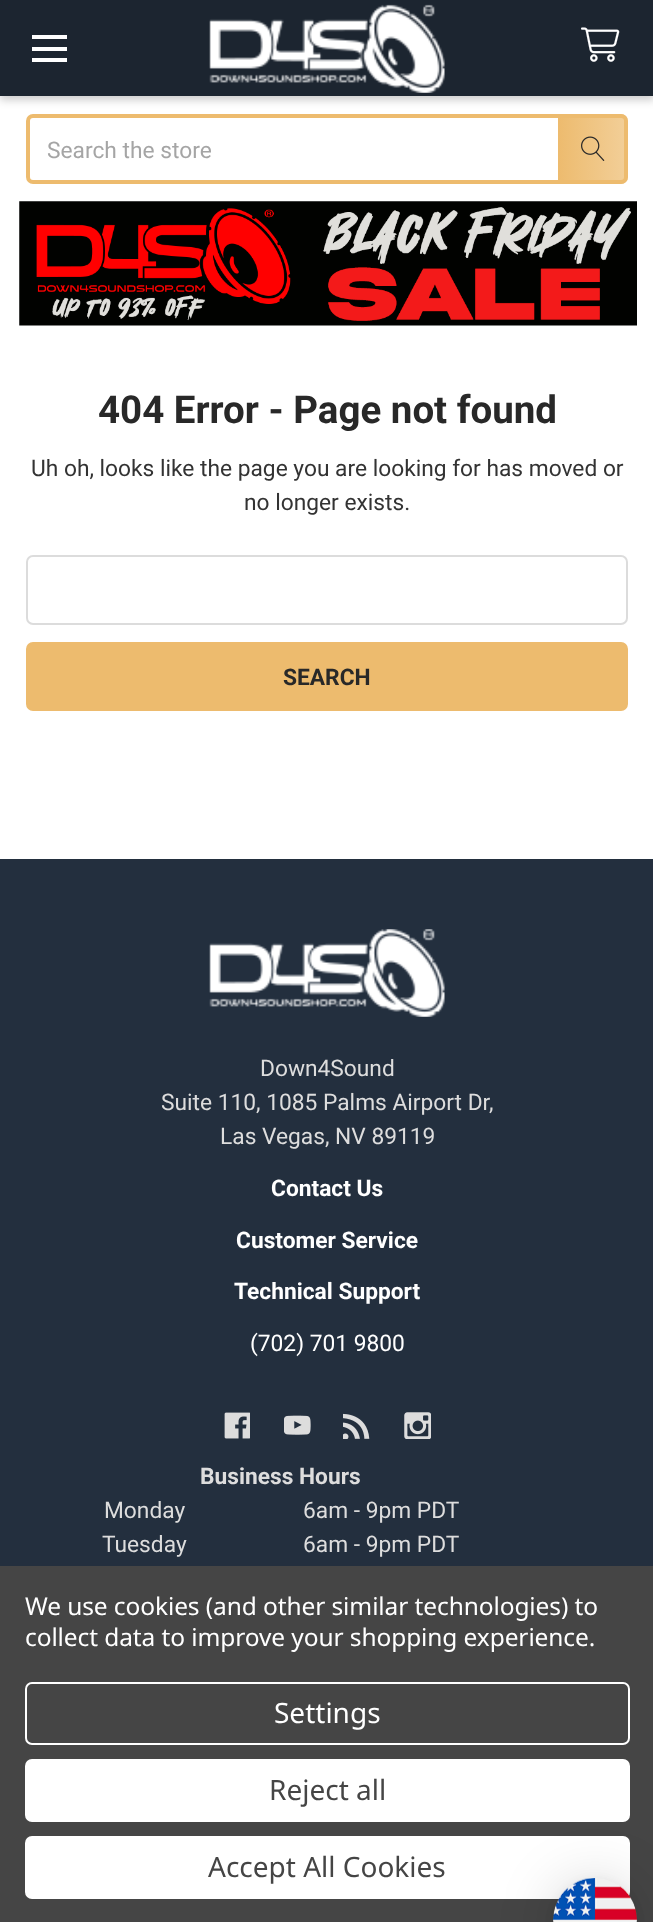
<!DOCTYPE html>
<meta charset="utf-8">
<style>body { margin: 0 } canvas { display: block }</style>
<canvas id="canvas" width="653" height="1922"></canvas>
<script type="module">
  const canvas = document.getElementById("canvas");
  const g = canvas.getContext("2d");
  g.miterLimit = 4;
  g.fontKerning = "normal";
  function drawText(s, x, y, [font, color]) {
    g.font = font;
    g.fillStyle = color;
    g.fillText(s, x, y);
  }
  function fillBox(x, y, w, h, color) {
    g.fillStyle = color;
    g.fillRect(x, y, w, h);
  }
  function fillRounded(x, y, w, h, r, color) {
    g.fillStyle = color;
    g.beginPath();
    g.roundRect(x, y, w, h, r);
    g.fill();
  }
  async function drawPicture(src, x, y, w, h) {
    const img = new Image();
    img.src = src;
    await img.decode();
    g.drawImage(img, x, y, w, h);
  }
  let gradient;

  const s1 = ["22.75px Roboto", "#A5A5A5"];
  const s2 = ["bold 38.5px Roboto", "#282828"];
  const s3 = ["22.75px Roboto", "#333333"];
  const s4 = ["bold 22.75px Roboto", "#282828"];
  const s5 = ["22.75px Roboto", "#DDDDDD"];
  const s6 = ["bold 22.75px Roboto", "#FFFFFF"];
  const s7 = ["22.75px Roboto", "#FFFFFF"];
  const s8 = ["bold 22.75px Roboto", "#DDDDDD"];
  const s9 = ["24.5px Noto Sans", "#FFFFFF"];
  const s10 = ["28px Noto Sans", "#FFFFFF"];
  const s11 = ["28px Noto Sans", "#454545"];

  fillBox(0, 0, 653, 1922, "#FFFFFF");
  g.beginPath();
  g.roundRect(28, 116, 598, 66, 5);
  g.strokeStyle = "#EDBB6E";
  g.lineWidth = 4;
  g.stroke();
  gradient = g.createLinearGradient(558, 149, 628, 149);
  gradient.addColorStop(0, "#EDBB6E");
  gradient.addColorStop(1, "rgba(237, 187, 110, 0.7)");
  g.fillStyle = gradient;
  g.beginPath();
  g.roundRect(558, 114, 70, 70, [0, 7, 7, 0]);
  g.fill();
  g.fillStyle = "rgba(0, 0, 0, 0.2)";
  g.filter = "blur(4.5px)";
  g.beginPath();
  g.rect(0, 4, 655, 96);
  g.fill();
  g.filter = "none";
  fillBox(0, 0, 653, 96, "#1C2530");
  fillBox(32, 47, 35, 4, "#FFFFFF");
  fillBox(32, 35, 35, 4, "#FFFFFF");
  fillBox(32, 58, 35, 4, "#FFFFFF");
  await drawPicture("pic1.png", 209, 4, 236, 89);
  await drawPicture("pic2.png", 581, 27, 39, 35);
  drawText("Search the store", 47, 158, s1);
  await drawPicture("pic3.png", 581, 136, 24, 25);
  await drawPicture("pic4.png", 19, 201, 618, 125);
  drawText("404 Error - Page not found", 98, 423, s2);
  drawText("Uh oh, looks like the page you are looking for has moved or", 31, 476, s3);
  drawText("no longer exists.", 244, 510, s3);
  g.beginPath();
  g.roundRect(27, 556, 600, 68, 6);
  g.strokeStyle = "#DCDCDC";
  g.lineWidth = 2;
  g.stroke();
  g.fillStyle = "#EDBB6E";
  g.beginPath();
  g.roundRect(27, 643, 600, 67, 6);
  g.fill();
  g.strokeStyle = "#EDBB6E";
  g.stroke();
  drawText("SEARCH", 283, 685, s4);
  fillBox(0, 859, 653, 707, "#232F3E");
  await drawPicture("pic5.png", 209, 929, 236, 88);
  drawText("Down4Sound", 260, 1076, s5);
  drawText("Suite 110, 1085 Palms Airport Dr,", 161, 1110, s5);
  drawText("Las Vegas, NV 89119", 220, 1144, s5);
  drawText("Contact Us", 271, 1196, s6);
  drawText("Customer Service", 236, 1248, s6);
  drawText("Technical Support", 234, 1299, s6);
  drawText("(702) 701 9800", 250, 1351, s7);
  await drawPicture("pic6.png", 224, 1412, 26, 27);
  await drawPicture("pic7.png", 284, 1415, 27, 20);
  await drawPicture("pic8.png", 343, 1413, 27, 26);
  await drawPicture("pic9.png", 404, 1412, 27, 27);
  drawText("Business Hours", 200, 1484, s8);
  drawText("Monday", 104, 1518, s5);
  drawText("6am - 9pm PDT", 303, 1518, s5);
  drawText("Tuesday", 102, 1552, s5);
  drawText("6am - 9pm PDT", 303, 1552, s5);
  fillBox(0, 1566, 653, 356, "#454545");
  g.letterSpacing = "-0.1px";
  drawText("We use cookies (and other similar technologies) to", 25, 1615, s9);
  drawText("collect data to improve your shopping experience.", 25, 1646, s9);
  g.beginPath();
  g.roundRect(26, 1683, 603, 61, 6);
  g.strokeStyle = "#FFFFFF";
  g.stroke();
  g.letterSpacing = "0px";
  drawText("Settings", 274, 1723, s10);
  fillRounded(25, 1759, 605, 63, 7, "#FFFFFF");
  drawText("Reject all", 269, 1800, s11);
  fillRounded(25, 1836, 605, 63, 7, "#FFFFFF");
  drawText("Accept All Cookies", 208, 1877, s11);
  g.fillStyle = "rgba(0, 0, 0, 0.16)";
  g.filter = "blur(28px)";
  g.beginPath();
  g.roundRect(553, 1881, 84, 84, 42);
  g.fill();
  g.filter = "none";
  g.fillStyle = "rgba(0, 0, 0, 0.06)";
  g.filter = "blur(5px)";
  g.beginPath();
  g.roundRect(553, 1880, 84, 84, 42);
  g.fill();
  g.filter = "none";
  await drawPicture("pic10.png", 553, 1878, 84, 44);
</script>
